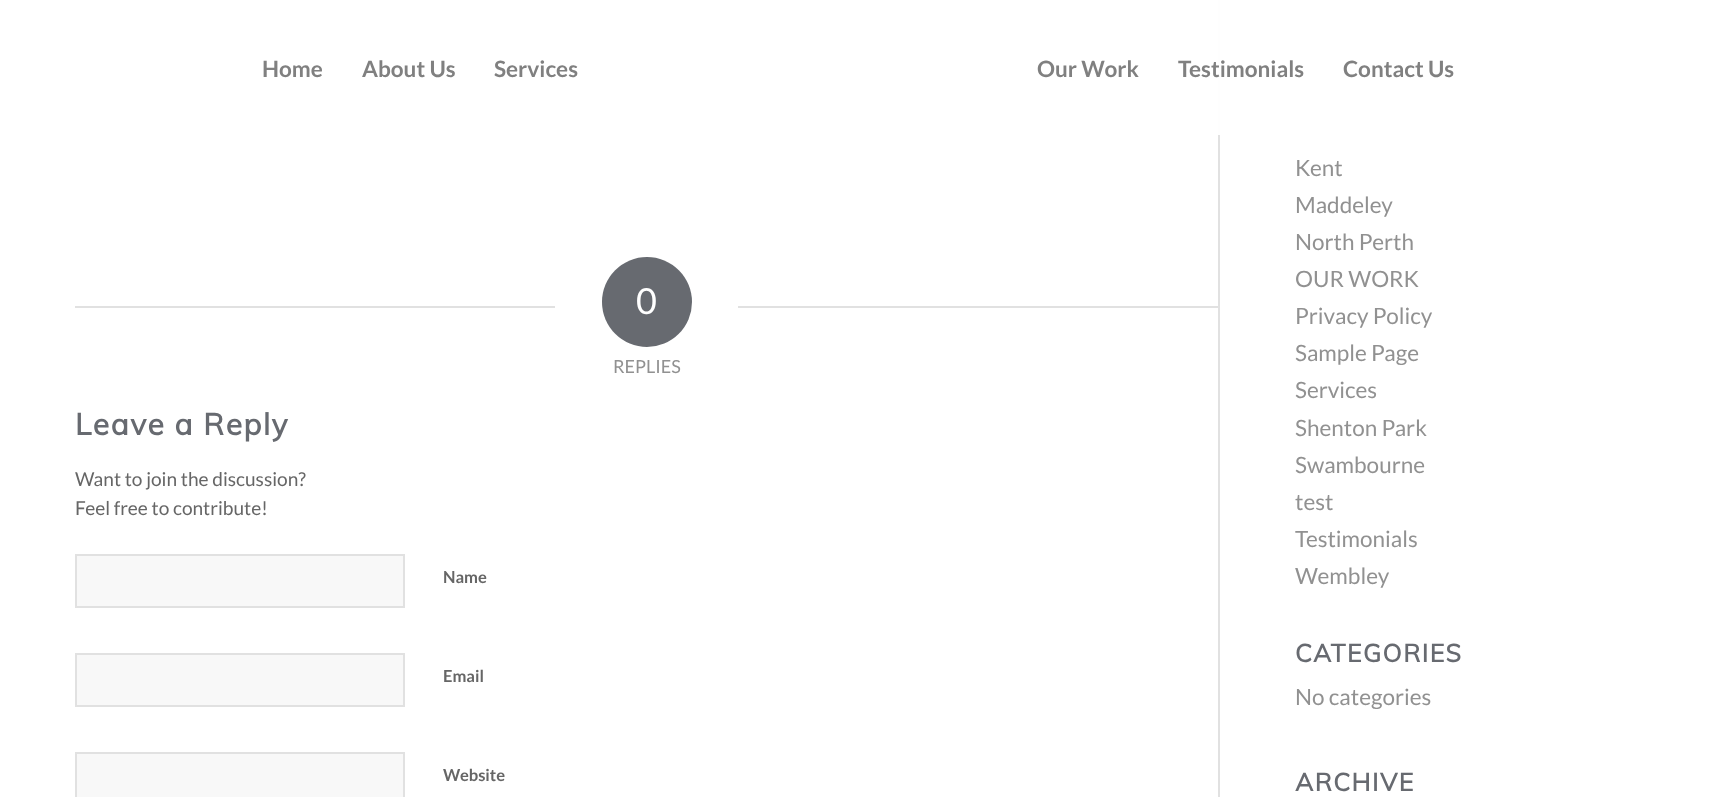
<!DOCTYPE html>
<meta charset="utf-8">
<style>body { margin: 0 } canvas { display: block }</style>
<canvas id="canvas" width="1715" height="797"></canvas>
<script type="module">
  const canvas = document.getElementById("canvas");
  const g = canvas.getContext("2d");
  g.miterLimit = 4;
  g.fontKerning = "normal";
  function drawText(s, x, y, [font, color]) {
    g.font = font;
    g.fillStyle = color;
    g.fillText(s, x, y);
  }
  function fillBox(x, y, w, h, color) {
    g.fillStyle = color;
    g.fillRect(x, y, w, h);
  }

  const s1 = ["bold 22.5px Lato", "#808080"];
  const s2 = ["36px Lato", "#FFFFFF"];
  const s3 = ["18px Lato", "#919191"];
  const s4 = ["bold 30px Muli", "#676A70"];
  const s5 = ["19.1px Lato", "#666666"];
  const s6 = ["bold 16.5px Lato", "#666666"];
  const s7 = ["22.5px Lato", "#919191"];
  const s8 = ["bold 24.75px Muli", "#676A70"];

  fillBox(0, 0, 1715, 797, "#FFFFFF");
  fillBox(1218, 0, 2, 797, "#E1E1E1");
  fillBox(1218, 0, 2, 135, "rgba(255, 255, 255, 0.95)");
  drawText("Home", 262, 77, s1);
  drawText("About Us", 362, 77, s1);
  drawText("Services", 494, 77, s1);
  drawText("Our Work", 1037, 77, s1);
  drawText("Testimonials", 1178, 77, s1);
  drawText("Contact Us", 1343, 77, s1);
  fillBox(75, 306, 480, 2, "#E1E1E1");
  g.fillStyle = "#676A70";
  g.beginPath();
  g.arc(647, 302, 45, 0, Math.PI * 2);
  g.fill();
  drawText("0", 636, 314, s2);
  fillBox(738, 306, 480, 2, "#E1E1E1");
  drawText("REPLIES", 613, 373, s3);
  g.letterSpacing = "1.5px";
  drawText("Leave a Reply", 75, 435, s4);
  g.letterSpacing = "0px";
  drawText("Want to join the discussion?", 75, 486, s5);
  drawText("Feel free to contribute!", 75, 515, s5);
  g.fillStyle = "#F8F8F8";
  g.beginPath();
  g.rect(76, 555, 328, 52);
  g.fill();
  g.strokeStyle = "#E1E1E1";
  g.lineWidth = 2;
  g.stroke();
  drawText("Name", 443, 583, s6);
  g.fillStyle = "#F8F8F8";
  g.beginPath();
  g.rect(76, 654, 328, 52);
  g.fill();
  g.stroke();
  drawText("Email", 443, 682, s6);
  g.fillStyle = "#F8F8F8";
  g.beginPath();
  g.rect(76, 753, 328, 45);
  g.fill();
  g.stroke();
  drawText("Website", 443, 781, s6);
  drawText("Kent", 1295, 176, s7);
  drawText("Maddeley", 1295, 213, s7);
  drawText("North Perth", 1295, 250, s7);
  drawText("OUR WORK", 1295, 287, s7);
  drawText("Privacy Policy", 1295, 324, s7);
  drawText("Sample Page", 1295, 361, s7);
  drawText("Services", 1295, 398, s7);
  drawText("Shenton Park", 1295, 436, s7);
  drawText("Swambourne", 1295, 473, s7);
  drawText("test", 1295, 510, s7);
  drawText("Testimonials", 1295, 547, s7);
  drawText("Wembley", 1295, 584, s7);
  g.letterSpacing = "1.5px";
  drawText("CATEGORIES", 1295, 662, s8);
  g.letterSpacing = "0px";
  drawText("No categories", 1295, 705, s7);
  g.letterSpacing = "1.5px";
  drawText("ARCHIVE", 1295, 791, s8);
</script>
